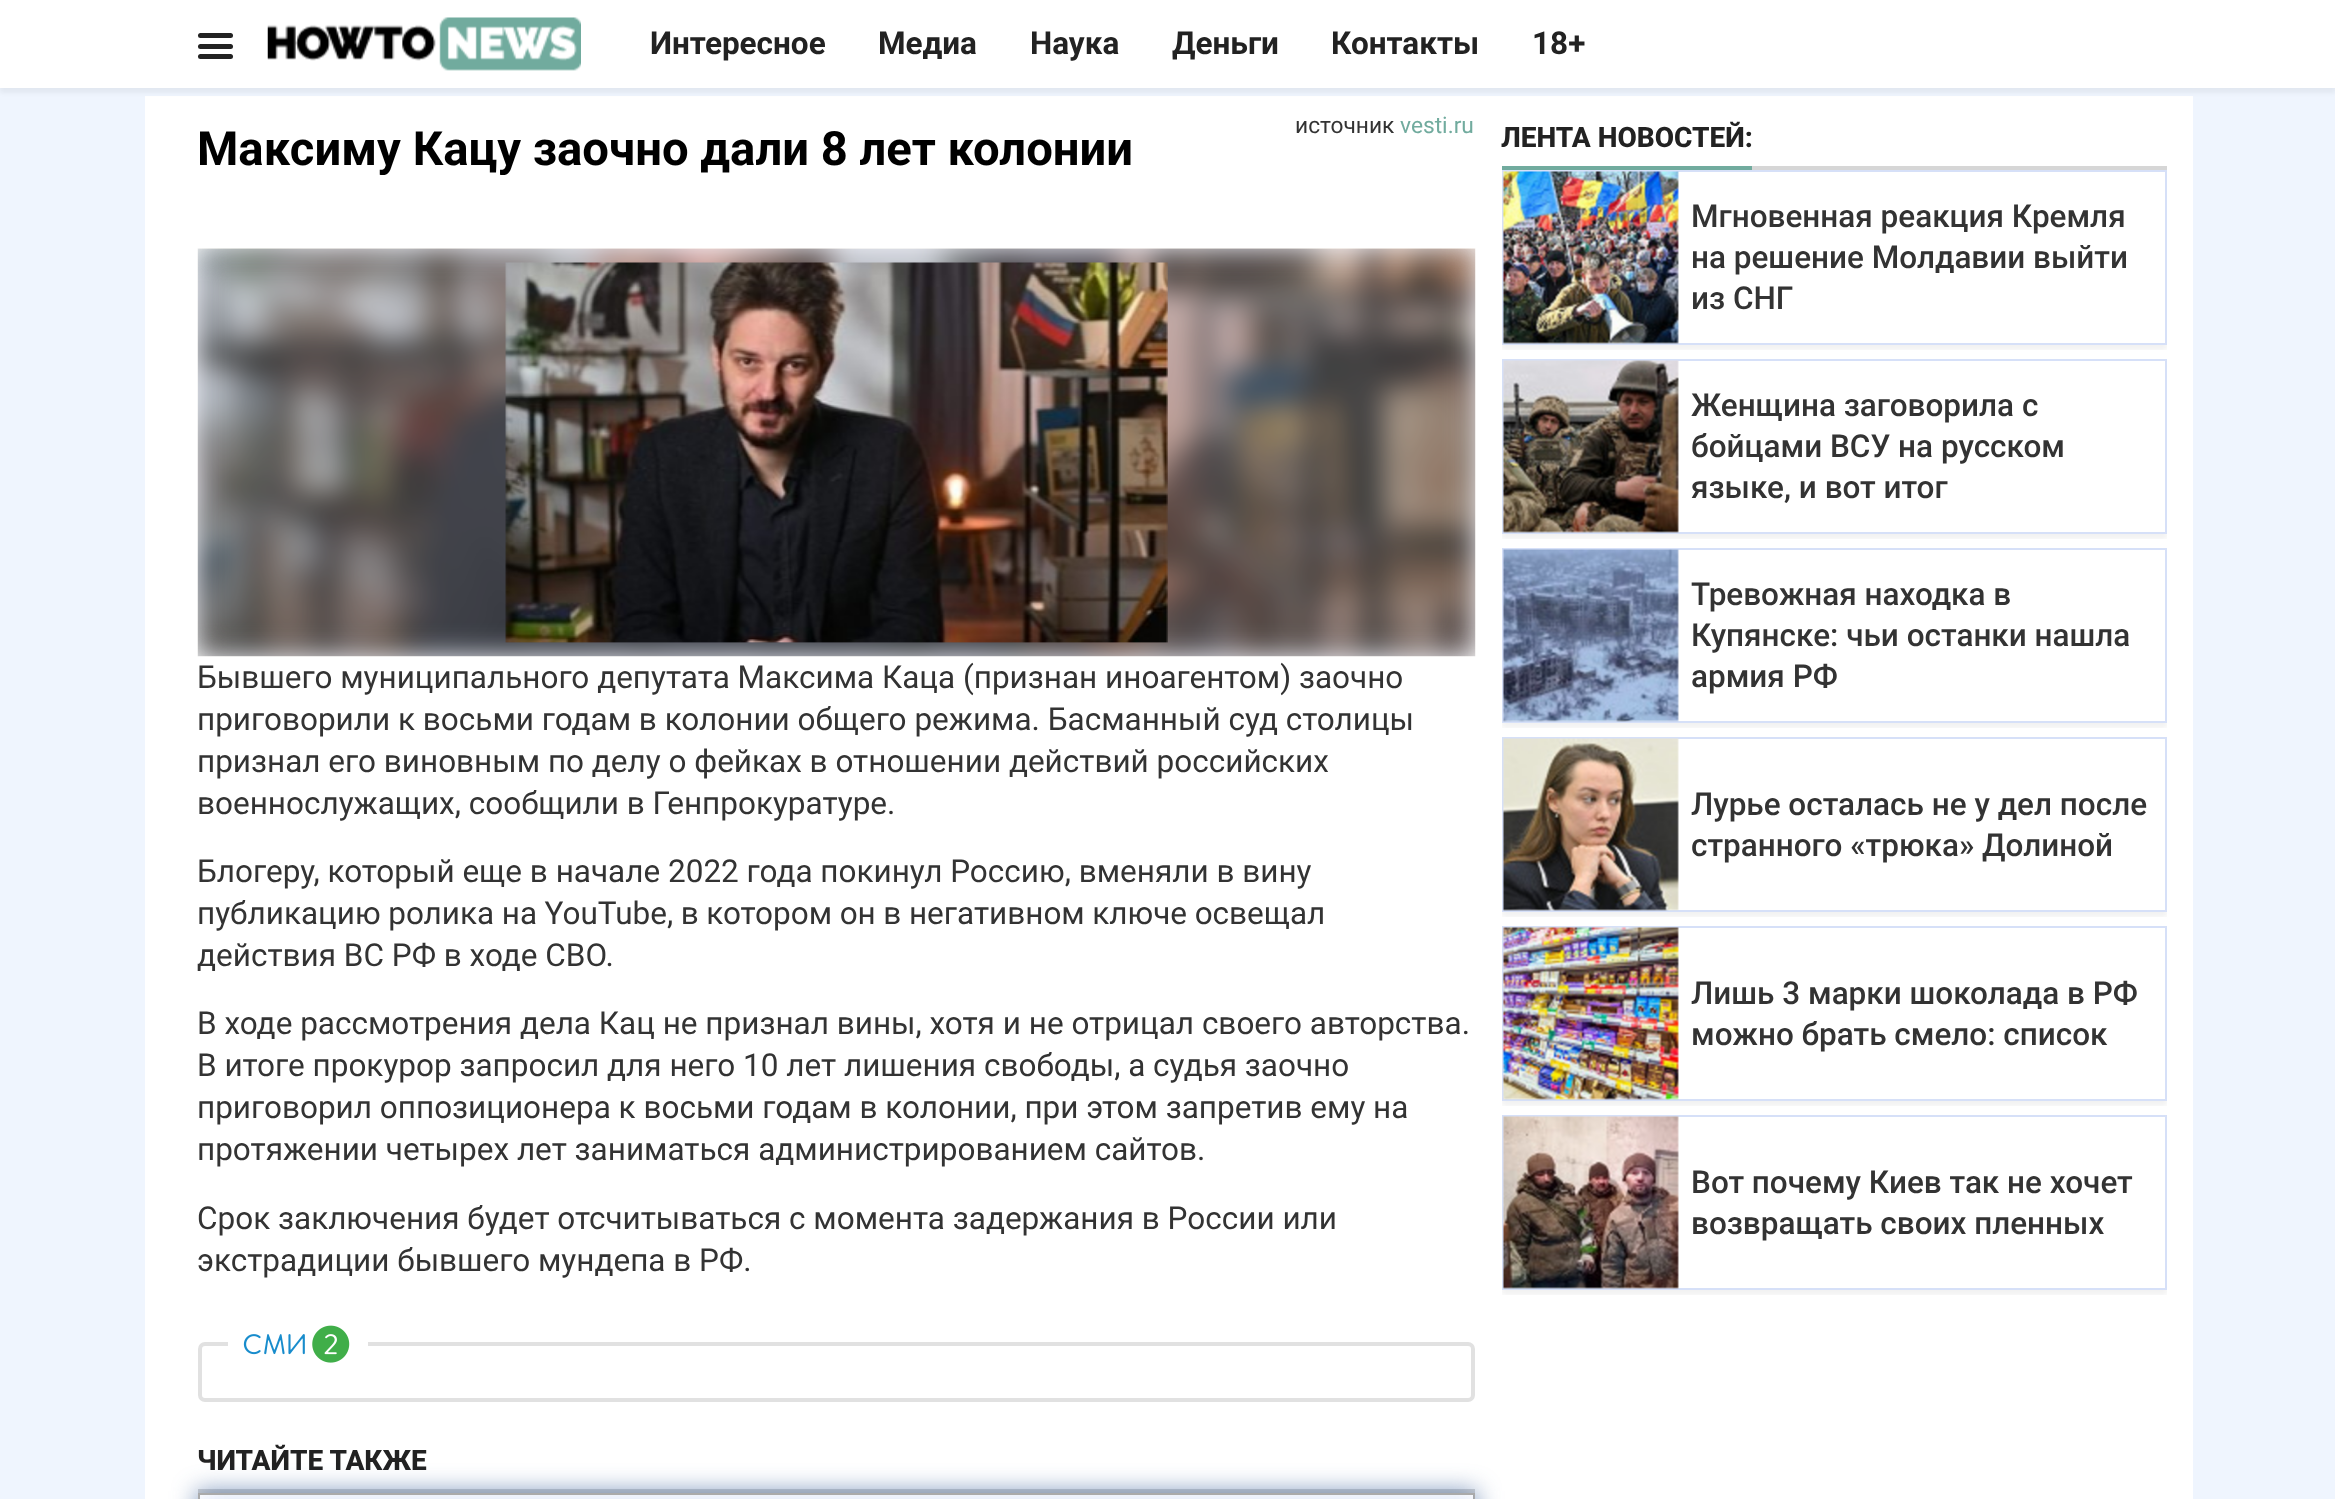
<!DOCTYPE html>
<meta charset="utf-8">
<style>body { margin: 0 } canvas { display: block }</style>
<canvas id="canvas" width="2335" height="1499"></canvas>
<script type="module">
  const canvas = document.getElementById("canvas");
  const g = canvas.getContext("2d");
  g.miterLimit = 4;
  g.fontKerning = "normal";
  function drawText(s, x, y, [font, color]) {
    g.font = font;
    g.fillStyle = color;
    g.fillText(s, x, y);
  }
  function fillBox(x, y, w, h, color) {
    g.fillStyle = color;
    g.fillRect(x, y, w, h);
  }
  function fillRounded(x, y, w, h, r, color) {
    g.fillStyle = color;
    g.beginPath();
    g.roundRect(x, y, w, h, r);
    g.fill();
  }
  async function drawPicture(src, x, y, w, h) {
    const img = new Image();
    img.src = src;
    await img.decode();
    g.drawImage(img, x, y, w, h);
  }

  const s1 = ["bold 31.5px Roboto", "#222222"];
  const s2 = ["22.75px Roboto", "#333333"];
  const s3 = ["22.75px Roboto", "#71AB9E"];
  const s4 = ["bold 47.25px Roboto", "#000000"];
  const s5 = ["31.5px Roboto", "#333333"];
  const s6 = ["800 28px Roboto", "#222222"];
  const s7 = ["500 31.5px Roboto", "#333333"];

  fillBox(0, 0, 2335, 1499, "#EFF5FE");
  fillBox(145, 96, 2048, 1403, "#FFFFFF");
  g.fillStyle = "rgba(0, 0, 0, 0.05)";
  g.filter = "blur(2px)";
  g.beginPath();
  g.rect(0, 5, 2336, 88);
  g.fill();
  g.filter = "none";
  fillBox(0, 0, 2335, 88, "#FFFFFF");
  fillRounded(198, 33, 35, 5, 2.5, "#222222");
  fillRounded(198, 44, 35, 5, 2.5, "#222222");
  fillRounded(198, 54, 35, 5, 2.5, "#222222");
  await drawPicture("pic1.png", 267, 17, 314, 54);
  drawText("Интересное", 650, 54, s1);
  drawText("Медиа", 878, 54, s1);
  drawText("Наука", 1030, 54, s1);
  drawText("Деньги", 1172, 54, s1);
  drawText("Контакты", 1331, 54, s1);
  drawText("18+", 1532, 54, s1);
  drawText("источник", 1295, 133, s2);
  drawText("vesti.ru", 1400, 133, s3);
  drawText("Максиму Кацу заочно дали 8 лет колонии", 197, 165, s4);
  g.save();
  g.beginPath();
  g.rect(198, 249, 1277, 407);
  g.clip();
  g.fillStyle = "rgba(90, 130, 227, 0.2)";
  g.filter = "blur(14px)";
  g.beginPath();
  g.rect(198, 249, 1277, 407);
  g.fill();
  g.filter = "none";
  g.restore();
  await drawPicture("pic2.png", 197, 248, 1279, 409);
  await drawPicture("pic3.png", 505, 262, 663, 381);
  drawText("Бывшего муниципального депутата Максима Каца (признан иноагентом) заочно", 197, 688, s5);
  drawText("приговорили к восьми годам в колонии общего режима. Басманный суд столицы", 197, 730, s5);
  drawText("признал его виновным по делу о фейках в отношении действий российских", 197, 772, s5);
  drawText("военнослужащих, сообщили в Генпрокуратуре.", 197, 814, s5);
  drawText("Блогеру, который еще в начале 2022 года покинул Россию, вменяли в вину", 197, 882, s5);
  g.wordSpacing = "-0.25px";
  drawText("публикацию ролика на YouTube, в котором он в негативном ключе освещал", 197, 924, s5);
  g.wordSpacing = "0px";
  drawText("действия ВС РФ в ходе СВО.", 197, 966, s5);
  drawText("В ходе рассмотрения дела Кац не признал вины, хотя и не отрицал своего авторства.", 197, 1034, s5);
  drawText("В итоге прокурор запросил для него 10 лет лишения свободы, а судья заочно", 197, 1076, s5);
  drawText("приговорил оппозиционера к восьми годам в колонии, при этом запретив ему на", 197, 1118, s5);
  drawText("протяжении четырех лет заниматься администрированием сайтов.", 197, 1160, s5);
  drawText("Срок заключения будет отсчитываться с момента задержания в России или", 197, 1229, s5);
  drawText("экстрадиции бывшего мундепа в РФ.", 197, 1271, s5);
  g.beginPath();
  g.roundRect(200, 1344, 1273, 56, 5);
  g.strokeStyle = "#E1E1E1";
  g.lineWidth = 4;
  g.stroke();
  fillBox(228, 1342, 140, 4, "#FFFFFF");
  await drawPicture("pic4.png", 243, 1325, 107, 38);
  fillBox(198, 1489, 1277, 4, "#D6D6D6");
  drawText("ЧИТАЙТЕ ТАКЖЕ", 197, 1470, s6);
  g.save();
  g.beginPath();
  g.moveTo(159, 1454);
  g.lineTo(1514, 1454);
  g.lineTo(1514, 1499);
  g.lineTo(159, 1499);
  g.closePath();
  g.moveTo(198, 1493);
  g.lineTo(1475, 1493);
  g.lineTo(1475, 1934);
  g.lineTo(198, 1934);
  g.closePath();
  g.clip("evenodd");
  g.fillStyle = "rgba(36, 79, 143, 0.59)";
  g.filter = "blur(12px)";
  g.beginPath();
  g.rect(196, 1491, 1281, 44);
  g.fill();
  g.filter = "none";
  g.restore();
  g.strokeStyle = "#AAAAAA";
  g.lineWidth = 2;
  g.strokeRect(199, 1494, 1275, 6);
  g.save();
  g.beginPath();
  g.rect(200, 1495, 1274, 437);
  g.clip();
  g.fillStyle = "rgba(49, 99, 220, 0.16)";
  g.filter = "blur(14px)";
  g.beginPath();
  g.rect(200, 1495, 1274, 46);
  g.fill();
  g.filter = "none";
  g.restore();
  fillBox(1752, 166, 415, 4, "#D6D6D6");
  fillBox(1502, 166, 250, 4, "#71AB9E");
  drawText("ЛЕНТА НОВОСТЕЙ:", 1501, 147, s6);
  g.save();
  g.beginPath();
  g.rect(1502, 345, 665, 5);
  g.clip();
  g.fillStyle = "rgba(0, 0, 0, 0.05)";
  g.filter = "blur(2px)";
  g.beginPath();
  g.rect(1502, 175, 665, 175);
  g.fill();
  g.filter = "none";
  g.restore();
  g.strokeStyle = "rgba(49, 99, 220, 0.2)";
  g.strokeRect(1503, 171, 663, 173);
  await drawPicture("pic5.png", 1502, 171, 177, 173);
  drawText("Мгновенная реакция Кремля", 1691, 227, s7);
  drawText("на решение Молдавии выйти", 1691, 268, s7);
  drawText("из СНГ", 1691, 309, s7);
  g.save();
  g.beginPath();
  g.rect(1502, 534, 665, 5);
  g.clip();
  g.fillStyle = "rgba(0, 0, 0, 0.05)";
  g.filter = "blur(2px)";
  g.beginPath();
  g.rect(1502, 364, 665, 175);
  g.fill();
  g.filter = "none";
  g.restore();
  g.strokeRect(1503, 360, 663, 173);
  await drawPicture("pic6.png", 1502, 360, 177, 173);
  drawText("Женщина заговорила с", 1691, 416, s7);
  drawText("бойцами ВСУ на русском", 1691, 457, s7);
  drawText("языке, и вот итог", 1691, 498, s7);
  g.save();
  g.beginPath();
  g.rect(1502, 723, 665, 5);
  g.clip();
  g.fillStyle = "rgba(0, 0, 0, 0.05)";
  g.filter = "blur(2px)";
  g.beginPath();
  g.rect(1502, 553, 665, 175);
  g.fill();
  g.filter = "none";
  g.restore();
  g.strokeRect(1503, 549, 663, 173);
  await drawPicture("pic7.png", 1502, 549, 177, 173);
  drawText("Тревожная находка в", 1691, 605, s7);
  drawText("Купянске: чьи останки нашла", 1691, 646, s7);
  drawText("армия РФ", 1691, 687, s7);
  g.save();
  g.beginPath();
  g.rect(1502, 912, 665, 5);
  g.clip();
  g.fillStyle = "rgba(0, 0, 0, 0.05)";
  g.filter = "blur(2px)";
  g.beginPath();
  g.rect(1502, 742, 665, 175);
  g.fill();
  g.filter = "none";
  g.restore();
  g.strokeRect(1503, 738, 663, 173);
  await drawPicture("pic8.png", 1502, 738, 177, 173);
  drawText("Лурье осталась не у дел после", 1691, 815, s7);
  drawText("странного «трюка» Долиной", 1691, 856, s7);
  g.save();
  g.beginPath();
  g.rect(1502, 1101, 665, 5);
  g.clip();
  g.fillStyle = "rgba(0, 0, 0, 0.05)";
  g.filter = "blur(2px)";
  g.beginPath();
  g.rect(1502, 931, 665, 175);
  g.fill();
  g.filter = "none";
  g.restore();
  g.strokeRect(1503, 927, 663, 173);
  await drawPicture("pic9.png", 1502, 927, 177, 173);
  drawText("Лишь 3 марки шоколада в РФ", 1691, 1004, s7);
  drawText("можно брать смело: список", 1691, 1045, s7);
  g.save();
  g.beginPath();
  g.rect(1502, 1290, 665, 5);
  g.clip();
  g.fillStyle = "rgba(0, 0, 0, 0.05)";
  g.filter = "blur(2px)";
  g.beginPath();
  g.rect(1502, 1120, 665, 175);
  g.fill();
  g.filter = "none";
  g.restore();
  g.strokeRect(1503, 1116, 663, 173);
  await drawPicture("pic10.png", 1502, 1116, 177, 173);
  drawText("Вот почему Киев так не хочет", 1691, 1193, s7);
  drawText("возвращать своих пленных", 1691, 1234, s7);
</script>
